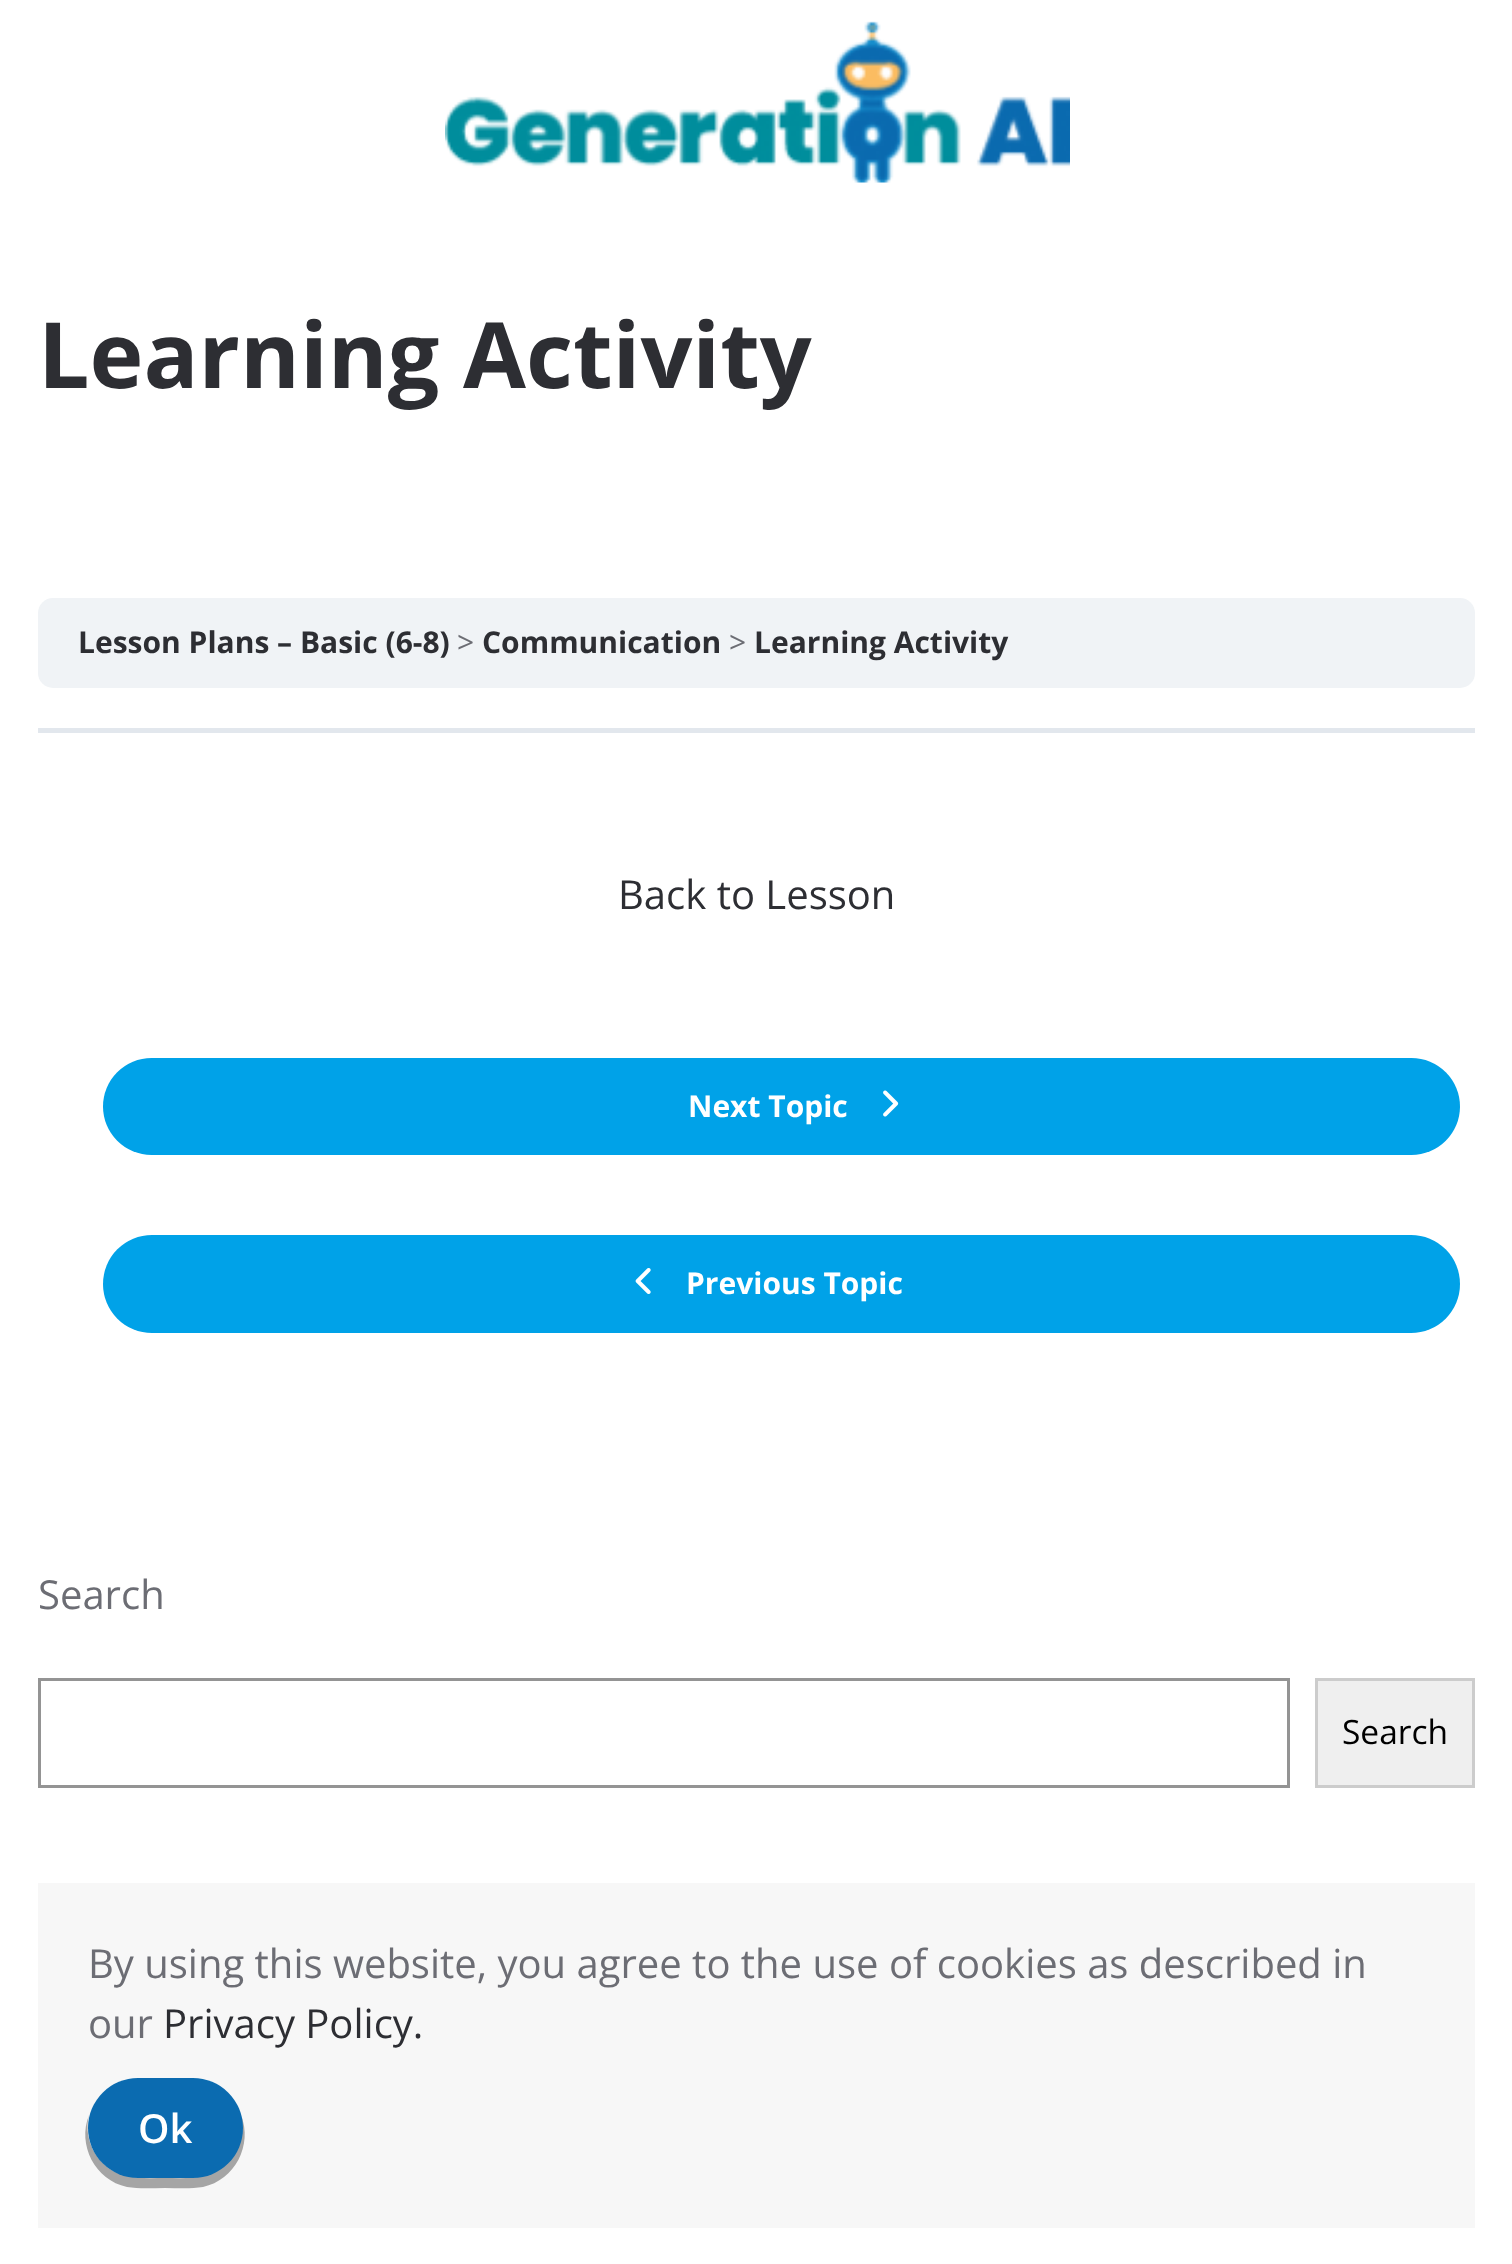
<!DOCTYPE html>
<meta charset="utf-8">
<style>body { margin: 0 } canvas { display: block }</style>
<canvas id="canvas" width="1512" height="2264"></canvas>
<script type="module">
  const canvas = document.getElementById("canvas");
  const g = canvas.getContext("2d");
  g.miterLimit = 4;
  g.fontKerning = "normal";
  function drawText(s, x, y, [font, color]) {
    g.font = font;
    g.fillStyle = color;
    g.fillText(s, x, y);
  }
  function fillBox(x, y, w, h, color) {
    g.fillStyle = color;
    g.fillRect(x, y, w, h);
  }
  function fillRounded(x, y, w, h, r, color) {
    g.fillStyle = color;
    g.beginPath();
    g.roundRect(x, y, w, h, r);
    g.fill();
  }
  async function drawPicture(src, x, y, w, h) {
    const img = new Image();
    img.src = src;
    await img.decode();
    g.drawImage(img, x, y, w, h);
  }

  const s1 = ["bold 91.25px Open Sans", "#2D2E33"];
  const s2 = ["bold 30px Open Sans", "#2D2E33"];
  const s3 = ["30px Open Sans", "#6C6D74"];
  const s4 = ["40px Open Sans", "#2D2E33"];
  const s5 = ["bold 30px Open Sans", "#FFFFFF"];
  const s6 = ["40px Open Sans", "#6C6D74"];
  const s7 = ["33.5px Open Sans", "#000000"];
  const s8 = ["600 40px Open Sans", "#FFFFFF"];

  fillBox(0, 0, 1512, 2264, "#FFFFFF");
  await drawPicture("pic1.png", 445, 21, 625, 162);
  drawText("Learning Activity", 38, 388, s1);
  fillRounded(38, 598, 1437, 90, 15, "#F0F3F6");
  drawText("Lesson Plans – Basic (6-8)", 78, 653, s2);
  drawText(">", 457, 653, s3);
  drawText("Communication", 482, 653, s2);
  drawText(">", 729, 653, s3);
  drawText("Learning Activity", 754, 653, s2);
  fillBox(38, 728, 1437, 5, "#E2E7ED");
  drawText("Back to Lesson", 618, 909, s4);
  fillRounded(103, 1058, 1357, 97, 48.5, "#00A2E8");
  drawText("Next Topic", 688, 1117, s5);
  await drawPicture("pic2.png", 883, 1090, 16, 27);
  fillRounded(103, 1235, 1357, 98, 49, "#00A2E8");
  await drawPicture("pic3.png", 635, 1268, 16, 26);
  drawText("Previous Topic", 686, 1294, s5);
  drawText("Search", 38, 1609, s6);
  g.strokeStyle = "#949494";
  g.lineWidth = 3;
  g.strokeRect(39.5, 1679.5, 1249, 107);
  g.fillStyle = "#EFEFEF";
  g.beginPath();
  g.rect(1316.5, 1679.5, 157, 107);
  g.fill();
  g.strokeStyle = "#CCCCCC";
  g.stroke();
  drawText("Search", 1342, 1744, s7);
  fillBox(38, 1883, 1437, 345, "#F7F7F7");
  drawText("By using this website, you agree to the use of cookies as described in", 88, 1978, s6);
  drawText("our", 88, 2038, s6);
  drawText("Privacy Policy.", 163, 2038, s4);
  g.fillStyle = "#A5A5A5";
  g.beginPath();
  g.moveTo(89, 2115);
  g.bezierCurveTo(77, 2145, 95, 2180, 127, 2187);
  g.bezierCurveTo(139, 2189, 153, 2188, 165, 2188);
  g.bezierCurveTo(177, 2188, 191, 2189, 203, 2187);
  g.bezierCurveTo(235, 2180, 253, 2145, 241, 2115);
  g.bezierCurveTo(248, 2142, 230, 2171, 203, 2176);
  g.bezierCurveTo(191, 2179, 177, 2178, 165, 2178);
  g.bezierCurveTo(153, 2178, 139, 2179, 127, 2176);
  g.bezierCurveTo(100, 2171, 82, 2142, 89, 2115);
  g.closePath();
  g.fill();
  fillRounded(88, 2078, 155, 100, 50, "#0B6BB0");
  drawText("Ok", 138, 2143, s8);
</script>
